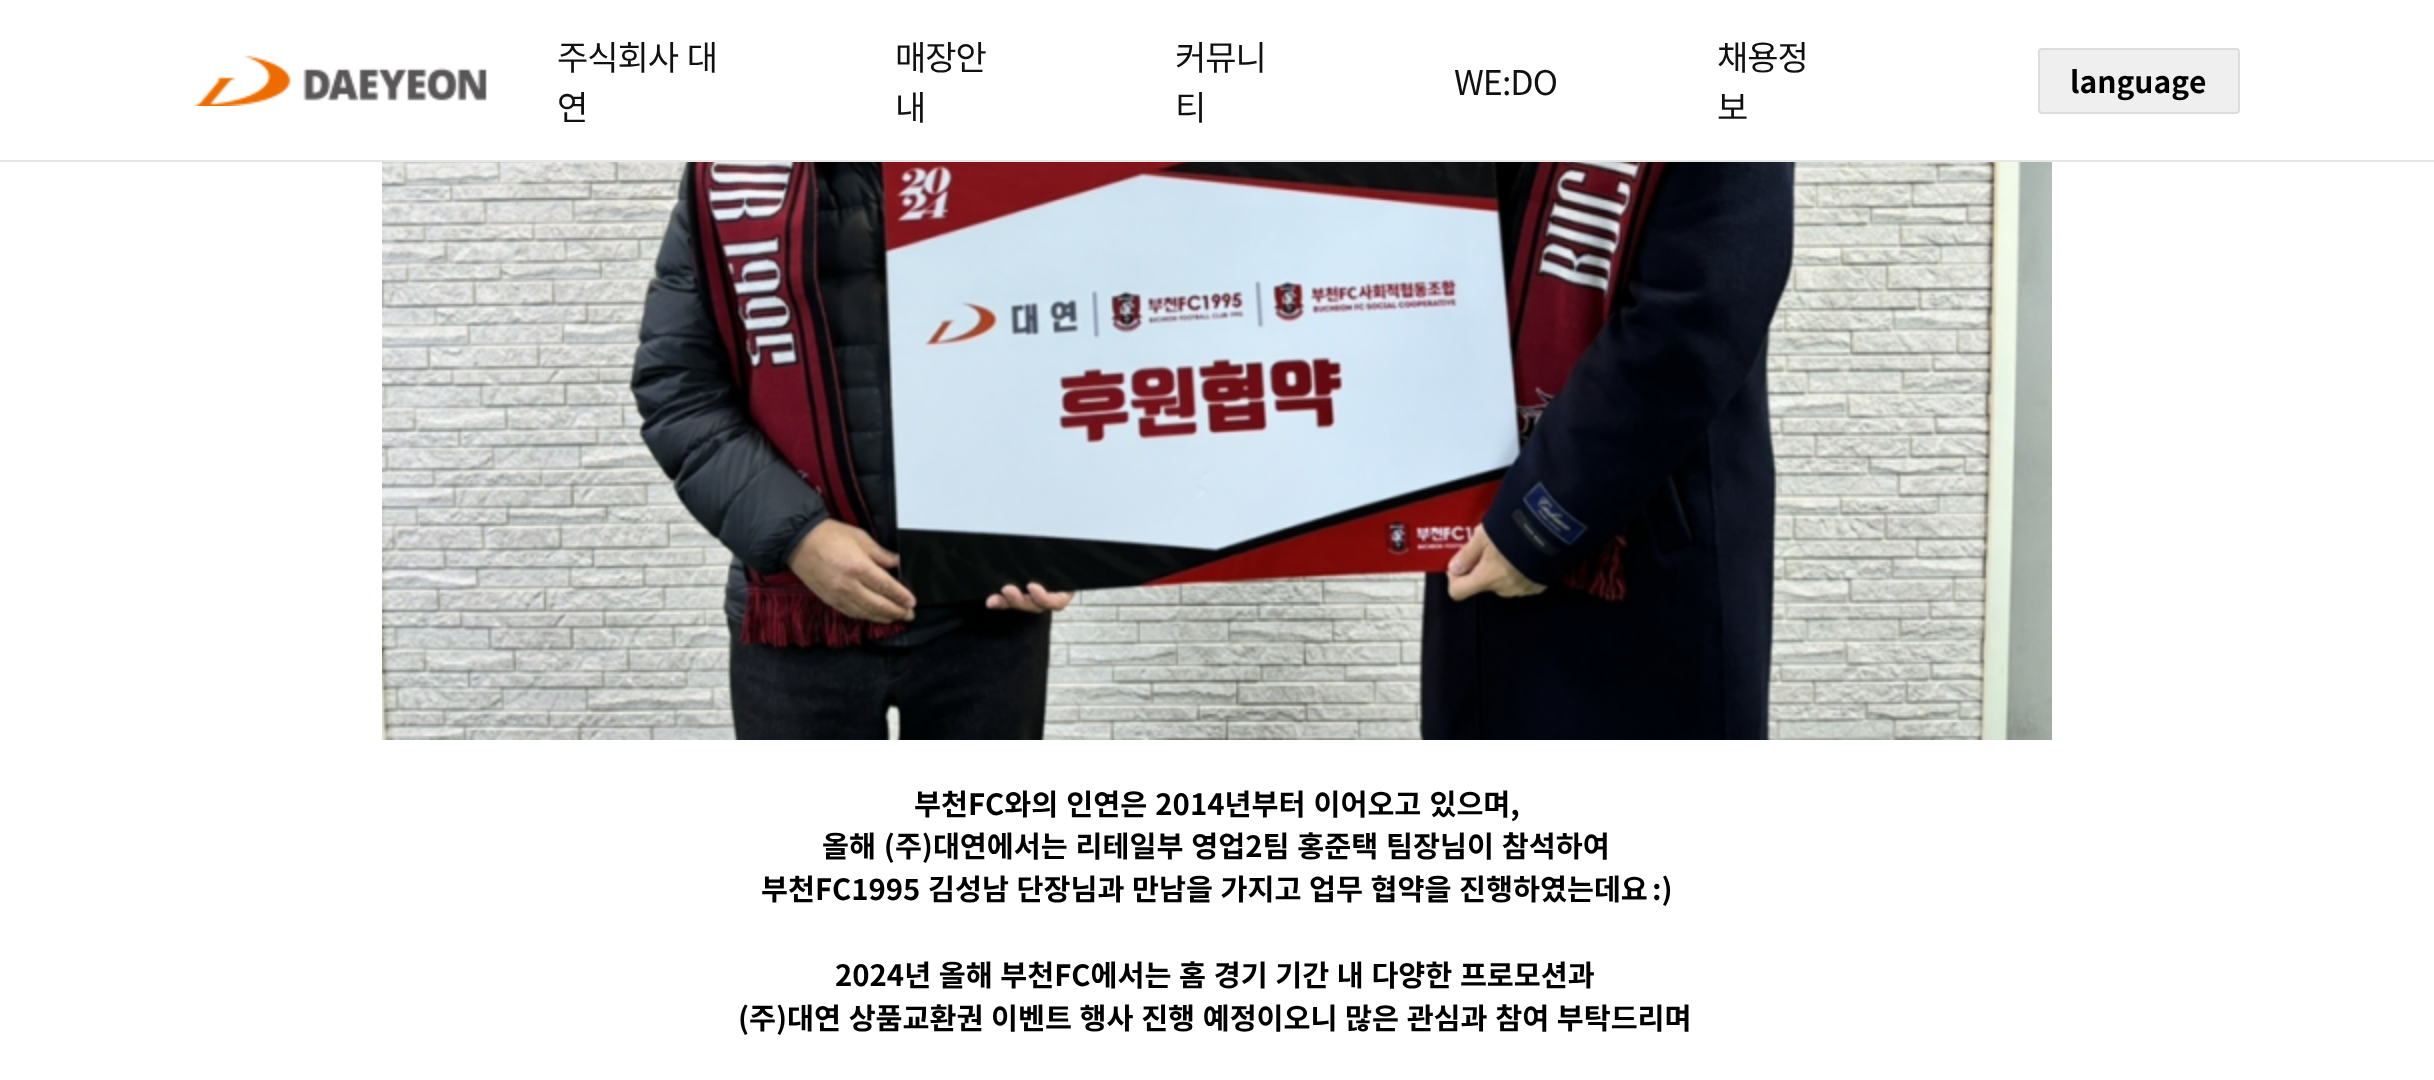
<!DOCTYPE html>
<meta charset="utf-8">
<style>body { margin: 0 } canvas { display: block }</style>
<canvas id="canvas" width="2434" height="1080"></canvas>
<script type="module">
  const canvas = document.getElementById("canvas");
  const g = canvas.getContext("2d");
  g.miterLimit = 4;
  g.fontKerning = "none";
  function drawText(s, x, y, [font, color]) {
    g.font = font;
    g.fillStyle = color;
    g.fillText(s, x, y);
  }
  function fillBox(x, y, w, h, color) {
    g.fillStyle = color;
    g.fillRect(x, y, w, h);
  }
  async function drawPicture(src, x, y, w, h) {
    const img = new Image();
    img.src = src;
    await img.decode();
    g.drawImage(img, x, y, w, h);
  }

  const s1 = ["34px Noto Sans KR", "#111111"];
  const s2 = ["bold 30px Noto Sans KR", "#000000"];
  const s3 = ["bold 29.3px Noto Sans KR", "#000000"];

  fillBox(0, 0, 2434, 1080, "#FFFFFF");
  fillBox(0, 160, 2434, 2, "#E6E6E6");
  await drawPicture("pic1.png", 194, 55, 293, 51);
  g.letterSpacing = "-1px";
  g.wordSpacing = "2px";
  drawText("주식회사 대", 557, 70, s1);
  g.wordSpacing = "0px";
  drawText("연", 557, 120, s1);
  drawText("매장안", 895, 70, s1);
  drawText("내", 895, 120, s1);
  drawText("커뮤니", 1175, 70, s1);
  drawText("티", 1175, 120, s1);
  drawText("WE:DO", 1454, 95, s1);
  drawText("채용정", 1717, 70, s1);
  drawText("보", 1717, 120, s1);
  g.fillStyle = "#EFEFEF";
  g.beginPath();
  g.roundRect(2039, 49, 200, 64, 3);
  g.fill();
  g.strokeStyle = "#DDDDDD";
  g.lineWidth = 2;
  g.stroke();
  g.letterSpacing = "0px";
  drawText("language", 2070, 93, s2);
  await drawPicture("pic2.png", 382, 162, 1670, 578);
  g.wordSpacing = "1.5px";
  drawText("부천FC와의 인연은 2014년부터 이어오고 있으며,", 914, 815, s3);
  g.wordSpacing = "1.25px";
  drawText("올해 (주)대연에서는 리테일부 영업2팀 홍준택 팀장님이 참석하여", 822, 857, s3);
  g.wordSpacing = "1px";
  drawText("부천FC1995 김성남 단장님과 만남을 가지고 업무 협약을 진행하였는데요", 761, 900, s3);
  g.wordSpacing = "0px";
  drawText(":)", 1652, 900, s3);
  g.wordSpacing = "1px";
  drawText("2024년 올해 부천FC에서는 홈 경기 기간 내 다양한 프로모션과", 835, 986, s3);
  drawText("(주)대연 상품교환권 이벤트 행사 진행 예정이오니 많은 관심과 참여 부탁드리며", 738, 1029, s3);
</script>
